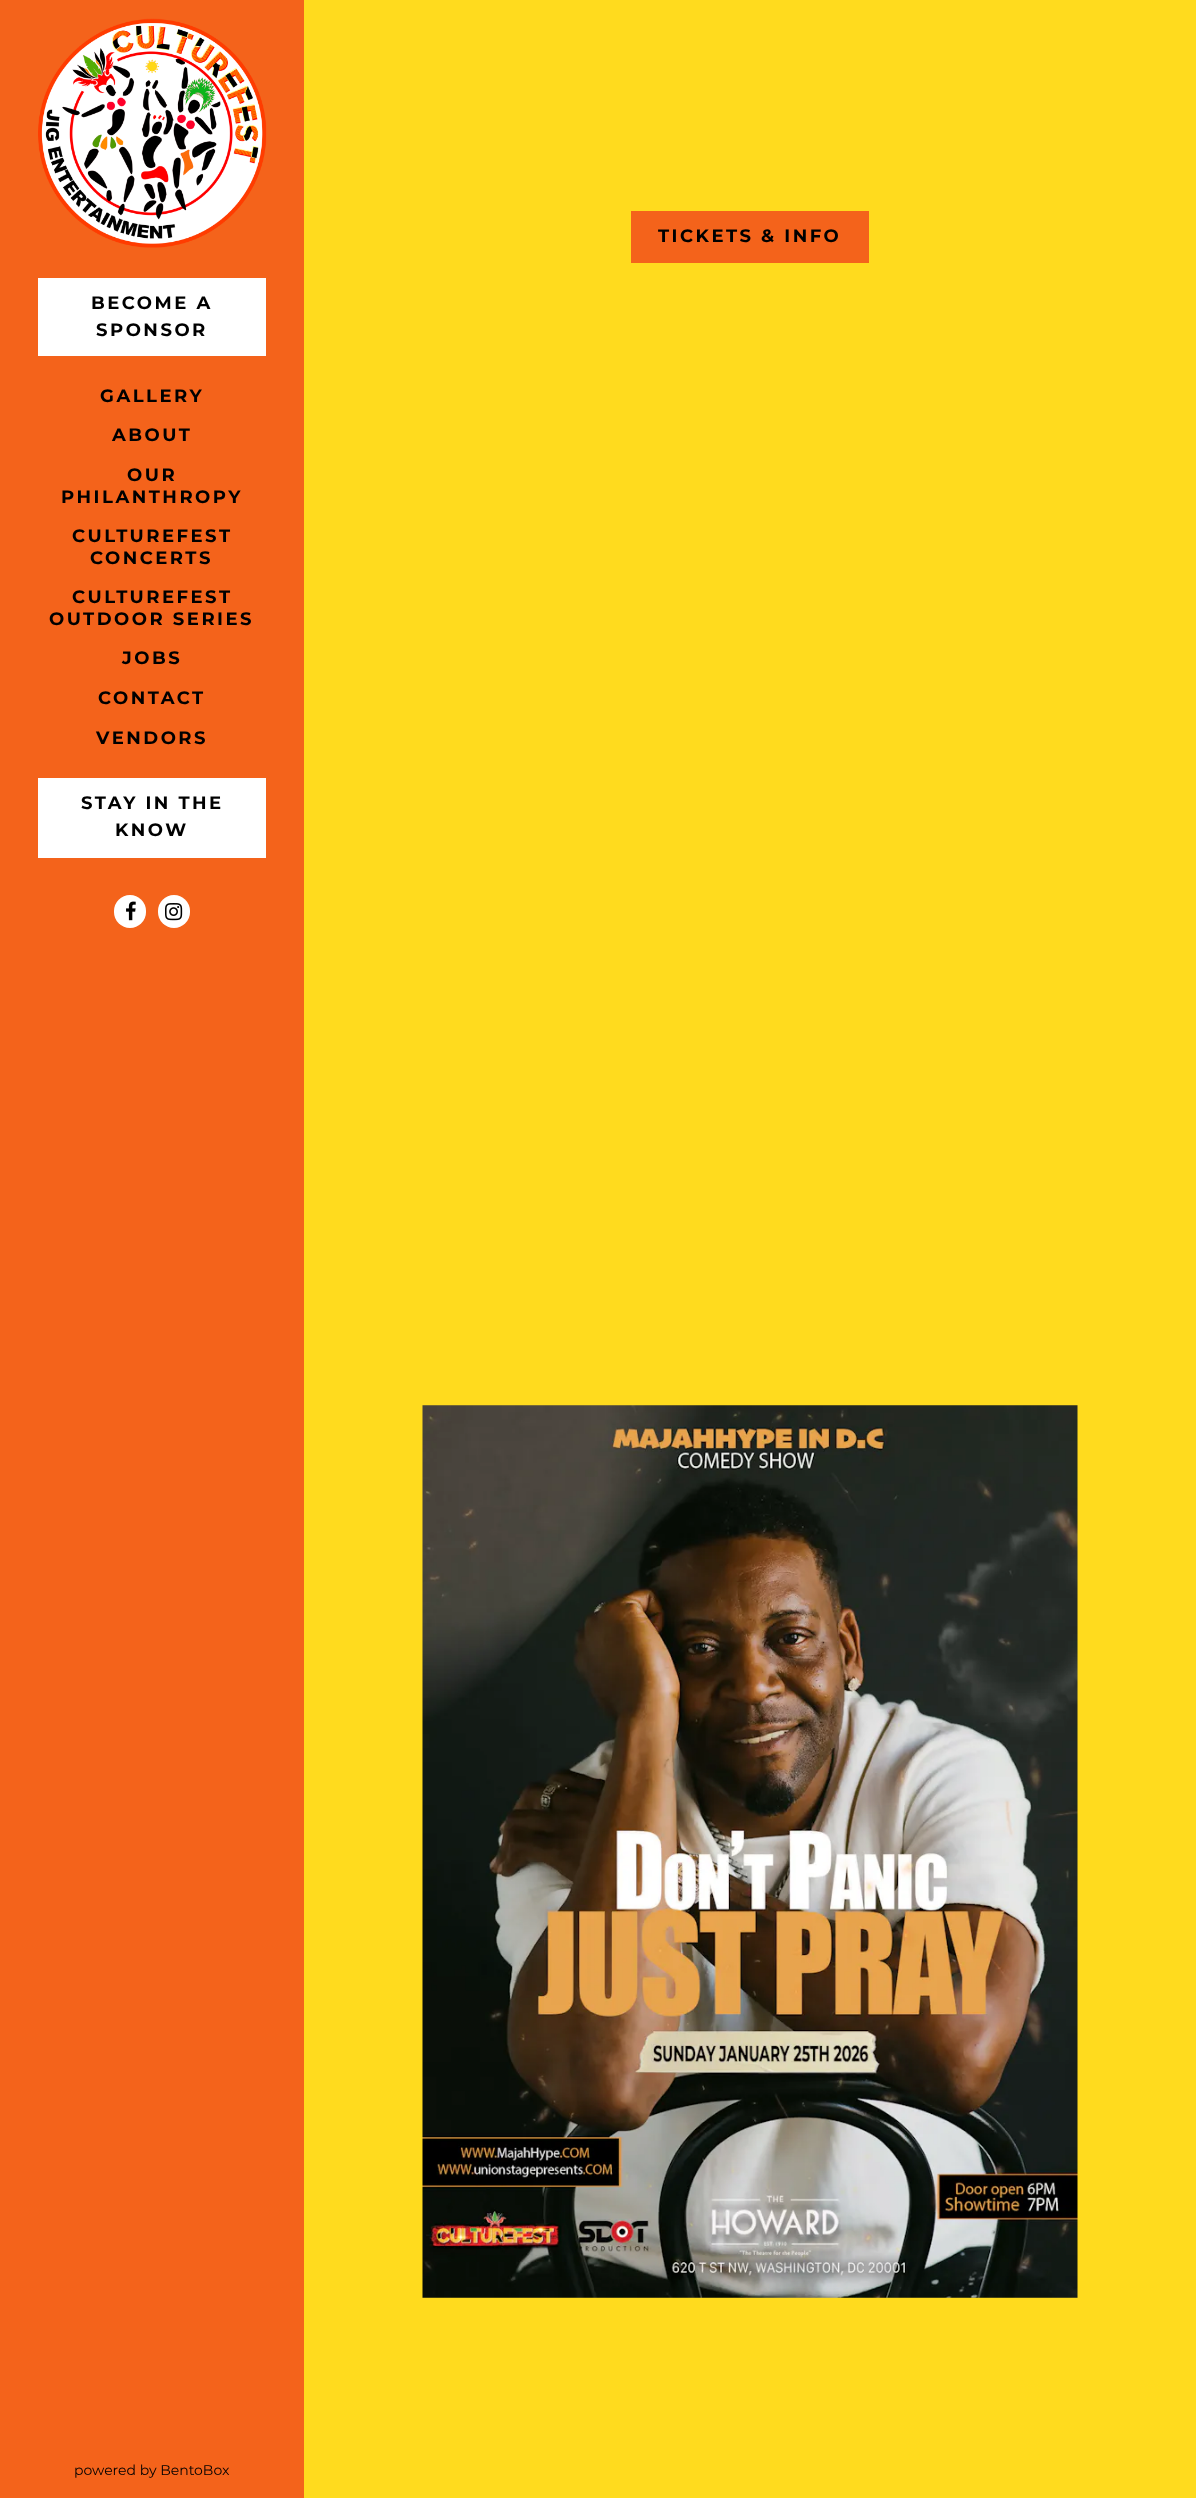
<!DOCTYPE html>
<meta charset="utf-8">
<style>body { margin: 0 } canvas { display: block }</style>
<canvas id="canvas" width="1196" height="2498"></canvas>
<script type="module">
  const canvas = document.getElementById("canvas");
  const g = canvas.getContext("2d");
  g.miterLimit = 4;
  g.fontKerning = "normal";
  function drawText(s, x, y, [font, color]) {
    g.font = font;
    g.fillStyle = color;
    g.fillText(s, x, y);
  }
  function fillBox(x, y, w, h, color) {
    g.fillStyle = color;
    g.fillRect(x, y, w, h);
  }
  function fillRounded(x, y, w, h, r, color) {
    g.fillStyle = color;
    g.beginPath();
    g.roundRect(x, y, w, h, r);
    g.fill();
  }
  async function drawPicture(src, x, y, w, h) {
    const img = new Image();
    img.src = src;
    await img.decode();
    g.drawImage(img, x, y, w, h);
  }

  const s1 = ["bold 18px Montserrat", "#000000"];
  const s2 = ["14px Montserrat", "#000000"];

  fillBox(0, 0, 1196, 2498, "#FFDB1E");
  fillBox(631, 211, 238, 52, "#F4631B");
  g.letterSpacing = "2.5px";
  drawText("TICKETS & INFO", 658, 242, s1);
  await drawPicture("pic1.png", 422, 1405, 656, 893);
  fillBox(0, 0, 304, 2498, "#F4631B");
  await drawPicture("pic2.png", 38, 18, 229, 230);
  fillBox(38, 278, 228, 78, "#FFFFFF");
  drawText("BECOME A", 91, 309, s1);
  drawText("SPONSOR", 96, 336, s1);
  drawText("GALLERY", 100, 402, s1);
  drawText("ABOUT", 112, 441, s1);
  drawText("OUR", 127, 481, s1);
  drawText("PHILANTHROPY", 61, 503, s1);
  drawText("CULTUREFEST", 72, 542, s1);
  drawText("CONCERTS", 90, 564, s1);
  drawText("CULTUREFEST", 72, 603, s1);
  drawText("OUTDOOR SERIES", 49, 625, s1);
  drawText("JOBS", 122, 664, s1);
  drawText("CONTACT", 98, 704, s1);
  drawText("VENDORS", 96, 744, s1);
  fillBox(38, 778, 228, 80, "#FFFFFF");
  drawText("STAY IN THE", 81, 809, s1);
  drawText("KNOW", 115, 836, s1);
  fillRounded(114, 895, 32, 33, 16, "#FFFFFF");
  await drawPicture("pic3.png", 126, 901, 10, 20);
  fillRounded(158, 895, 32, 33, 16, "#FFFFFF");
  await drawPicture("pic4.png", 165, 903, 18, 18);
  g.letterSpacing = "0px";
  drawText("powered by BentoBox", 74, 2475, s2);
</script>
